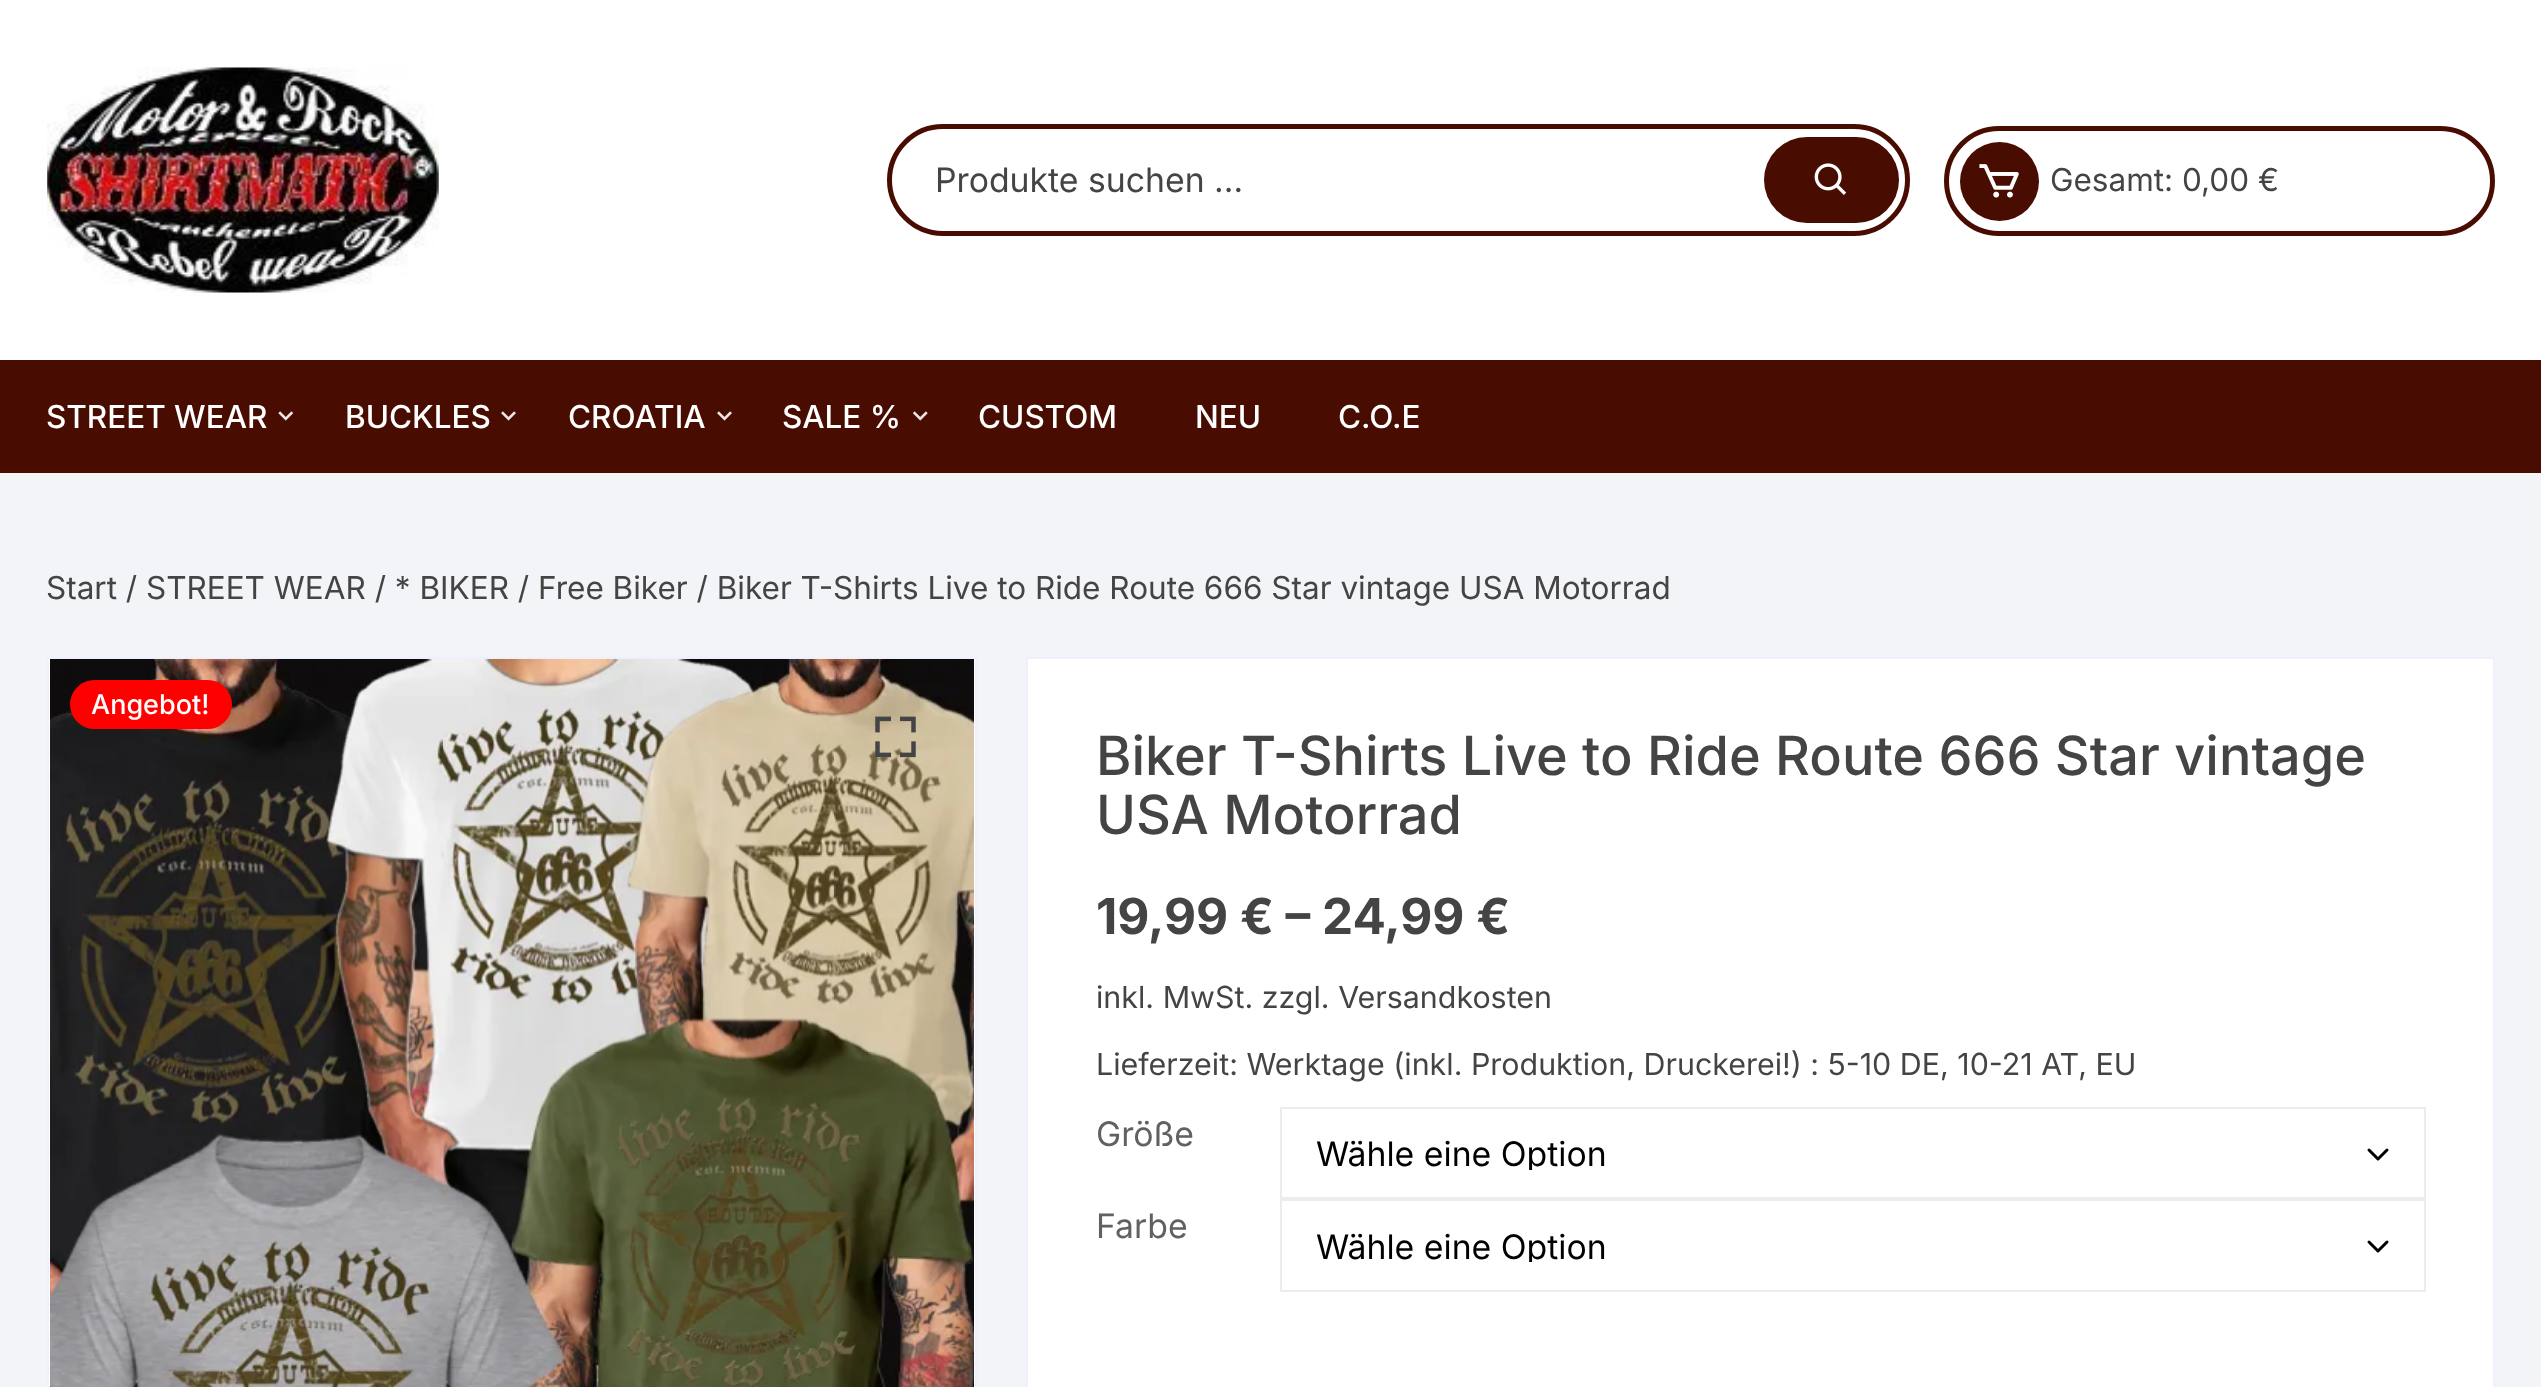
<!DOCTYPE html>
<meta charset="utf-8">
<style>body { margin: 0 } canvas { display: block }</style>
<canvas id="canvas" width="2541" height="1387"></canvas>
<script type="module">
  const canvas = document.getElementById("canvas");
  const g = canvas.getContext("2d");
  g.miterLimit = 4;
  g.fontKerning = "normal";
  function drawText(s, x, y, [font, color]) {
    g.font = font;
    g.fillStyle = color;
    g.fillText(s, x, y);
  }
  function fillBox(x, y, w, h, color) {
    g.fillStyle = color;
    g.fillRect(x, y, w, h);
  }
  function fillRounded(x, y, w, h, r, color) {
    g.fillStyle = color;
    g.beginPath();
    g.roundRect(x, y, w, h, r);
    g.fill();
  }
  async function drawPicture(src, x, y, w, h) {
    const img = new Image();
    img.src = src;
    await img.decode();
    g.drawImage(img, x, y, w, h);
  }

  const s1 = ["33.75px Inter", "#444444"];
  const s2 = ["31.5px Inter", "#444444"];
  const s3 = ["500 31.5px Inter", "#FFFFFF"];
  const s4 = ["500 27px Inter", "#FFFFFF"];
  const s5 = ["500 54px Inter", "#444444"];
  const s6 = ["bold 49.5px Inter", "#444444"];
  const s7 = ["30.4px Inter", "#444444"];
  const s8 = ["33.75px Inter", "#616161"];
  const s9 = ["33.75px Inter", "#000000"];

  fillBox(0, 0, 2541, 1387, "#F3F4F8");
  fillBox(0, 0, 2541, 360, "#FFFFFF");
  await drawPicture("pic1.png", 47, 67, 392, 226);
  g.beginPath();
  g.roundRect(889.5, 126.5, 1018, 107, 53.5);
  g.strokeStyle = "#490C00";
  g.lineWidth = 5;
  g.stroke();
  drawText("Produkte suchen …", 935, 192, s1);
  fillRounded(1764, 137, 135, 86, 43, "#490C00");
  await drawPicture("pic2.png", 1814, 163, 33, 32);
  g.beginPath();
  g.roundRect(1946.5, 128.5, 546, 105, 52.5);
  g.stroke();
  g.beginPath();
  g.arc(1999.5, 181.5, 39.5, 0, Math.PI * 2);
  g.fill();
  await drawPicture("pic3.png", 1979, 164, 40, 34);
  drawText("Gesamt: 0,00 €", 2050, 191, s2);
  fillBox(0, 360, 2541, 113, "#490C00");
  drawText("STREET WEAR", 46, 428, s3);
  await drawPicture("pic4.png", 278, 411, 16, 10);
  drawText("BUCKLES", 345, 428, s3);
  await drawPicture("pic5.png", 501, 411, 15, 10);
  drawText("CROATIA", 568, 428, s3);
  await drawPicture("pic5.png", 717, 411, 15, 10);
  drawText("SALE %", 782, 428, s3);
  await drawPicture("pic6.png", 912, 411, 16, 10);
  drawText("CUSTOM", 978, 428, s3);
  drawText("NEU", 1195, 428, s3);
  drawText("C.O.E", 1338, 428, s3);
  drawText("Start / STREET WEAR / * BIKER / Free Biker / Biker T-Shirts Live to Ride Route 666 Star vintage USA Motorrad", 46, 599, s2);
  g.fillStyle = "#FFFFFF";
  g.beginPath();
  g.rect(48, 658, 928, 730);
  g.fill();
  g.strokeStyle = "#EEF1FD";
  g.lineWidth = 2;
  g.stroke();
  await drawPicture("pic7.png", 50, 659, 924, 728);
  await drawPicture("pic8.png", 875, 716, 41, 42);
  fillRounded(70, 680, 162, 49, 24.5, "#FF0000");
  drawText("Angebot!", 91, 714, s4);
  g.beginPath();
  g.rect(1027, 658, 1467, 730);
  g.fill();
  g.stroke();
  drawText("Biker T-Shirts Live to Ride Route 666 Star vintage", 1096, 775, s5);
  drawText("USA Motorrad", 1096, 834, s5);
  drawText("19,99 € – 24,99 €", 1096, 934, s6);
  drawText("inkl. MwSt. zzgl. Versandkosten", 1096, 1008, s7);
  drawText("Lieferzeit: Werktage (inkl. Produktion, Druckerei!) : 5-10 DE, 10-21 AT, EU", 1096, 1075, s7);
  drawText("Größe", 1096, 1146, s8);
  g.beginPath();
  g.moveTo(2369, 1150);
  g.lineTo(2378, 1159);
  g.lineTo(2387, 1150);
  g.strokeStyle = "#000000";
  g.lineWidth = 3;
  g.lineCap = "round";
  g.lineJoin = "round";
  g.stroke();
  g.strokeStyle = "#ECECEC";
  g.lineWidth = 2;
  g.lineJoin = "miter";
  g.strokeRect(1281, 1108, 1144, 90);
  g.save();
  g.beginPath();
  g.rect(1316, 1136, 1006, 34);
  g.clip();
  drawText("Wähle eine Option", 1316, 1166, s9);
  g.restore();
  drawText("Farbe", 1096, 1238, s8);
  g.beginPath();
  g.moveTo(2369, 1242);
  g.lineTo(2378, 1251);
  g.lineTo(2387, 1242);
  g.strokeStyle = "#000000";
  g.lineWidth = 3;
  g.lineJoin = "round";
  g.stroke();
  g.strokeStyle = "#ECECEC";
  g.lineWidth = 2;
  g.lineJoin = "miter";
  g.strokeRect(1281, 1200, 1144, 91);
  g.save();
  g.beginPath();
  g.rect(1316, 1229, 1006, 33);
  g.clip();
  drawText("Wähle eine Option", 1316, 1259, s9);
  g.restore();
</script>
